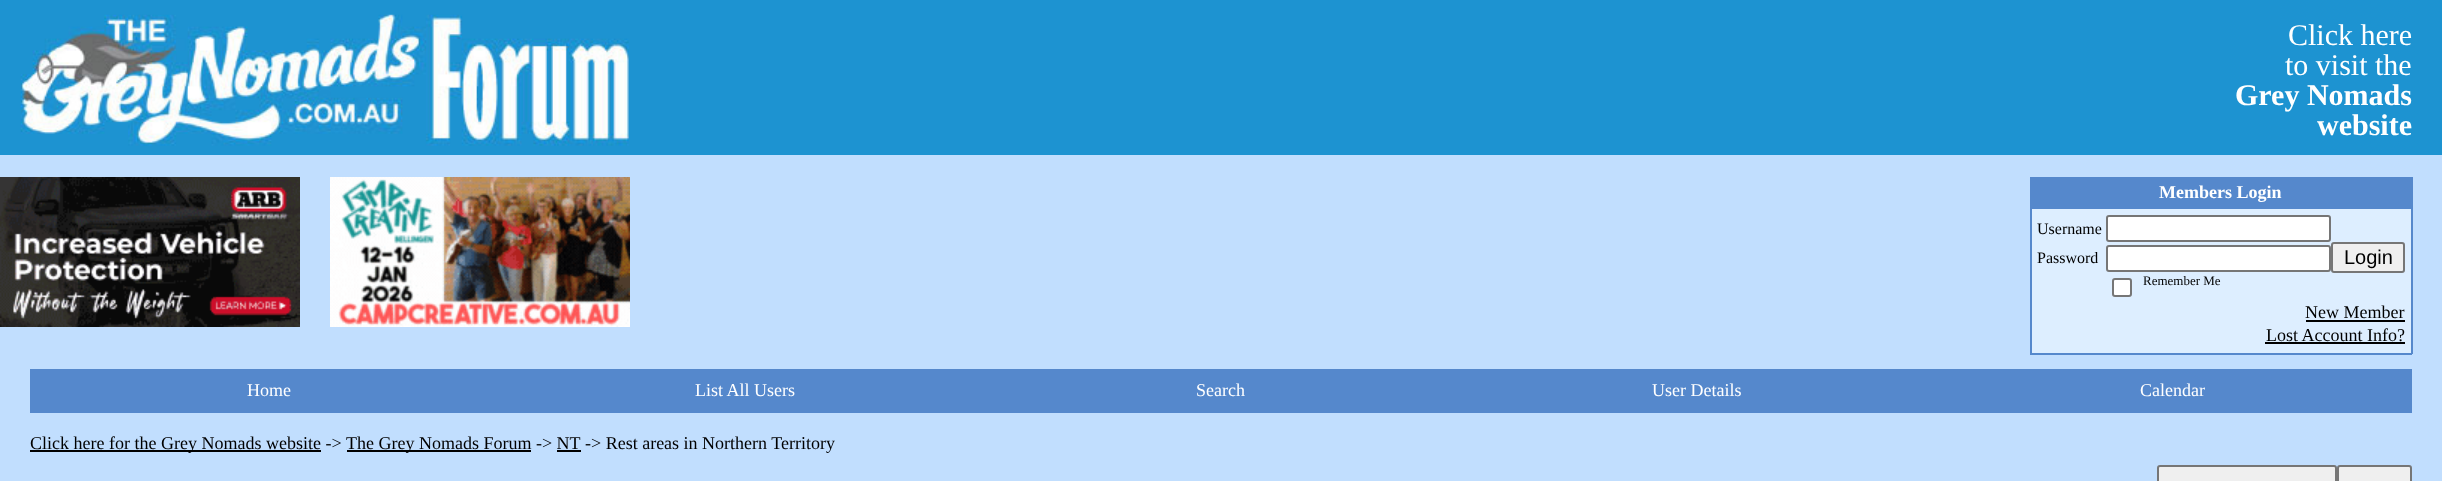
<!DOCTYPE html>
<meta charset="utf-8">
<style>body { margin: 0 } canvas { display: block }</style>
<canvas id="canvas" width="2442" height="481"></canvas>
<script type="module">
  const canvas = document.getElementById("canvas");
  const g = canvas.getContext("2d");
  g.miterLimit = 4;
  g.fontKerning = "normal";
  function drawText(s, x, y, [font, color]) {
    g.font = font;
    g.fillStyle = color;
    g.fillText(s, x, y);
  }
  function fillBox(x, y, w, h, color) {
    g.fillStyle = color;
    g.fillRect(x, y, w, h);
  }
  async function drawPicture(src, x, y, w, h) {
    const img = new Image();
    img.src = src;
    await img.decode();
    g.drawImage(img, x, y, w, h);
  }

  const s1 = ["30px Liberation Serif", "#FFFFFF"];
  const s2 = ["bold 30px Liberation Serif", "#FFFFFF"];
  const s3 = ["bold 18px Liberation Serif", "#FFFFFF"];
  const s4 = ["16px Liberation Serif", "#000000"];
  const s5 = ["20px Liberation Sans", "#000000"];
  const s6 = ["13px Liberation Serif", "#000000"];
  const s7 = ["18px Liberation Serif", "#000000"];
  const s8 = ["18px Liberation Serif", "#FFFFFF"];

  fillBox(0, 0, 2442, 481, "#C1DEFE");
  fillBox(0, 0, 2442, 155, "#1D93D1");
  await drawPicture("pic1.png", 20, 14, 609, 132);
  drawText("Click here", 2288, 45, s1);
  drawText("to visit the", 2285, 75, s1);
  drawText("Grey Nomads", 2235, 105, s2);
  drawText("website", 2317, 135, s2);
  await drawPicture("pic2.png", 0, 177, 300, 150);
  await drawPicture("pic3.png", 330, 177, 300, 150);
  fillBox(2030, 177, 382, 2, "#5588CC");
  fillBox(2411, 177, 2, 177, "#5588CC");
  fillBox(2030, 353, 382, 2, "#5588CC");
  fillBox(2030, 177, 2, 177, "#5588CC");
  fillBox(2032, 179, 379, 28, "#5588CC");
  fillBox(2030, 207, 382, 2, "#5588CC");
  drawText("Members Login", 2159, 198, s3);
  fillBox(2032, 209, 379, 144, "#DDEEFF");
  drawText("Username", 2037, 234, s4);
  g.fillStyle = "#FFFFFF";
  g.beginPath();
  g.roundRect(2107, 216, 223, 25, 2);
  g.fill();
  g.strokeStyle = "#767676";
  g.lineWidth = 2;
  g.stroke();
  drawText("Password", 2037, 263, s4);
  g.fillStyle = "#FFFFFF";
  g.beginPath();
  g.roundRect(2107, 246, 223, 25, 2);
  g.fill();
  g.stroke();
  g.fillStyle = "#EFEFEF";
  g.beginPath();
  g.roundRect(2332, 243, 72, 29, 2);
  g.fill();
  g.stroke();
  drawText("Login", 2344, 264, s5);
  g.fillStyle = "#FFFFFF";
  g.beginPath();
  g.roundRect(2113, 279, 18, 17, 2);
  g.fill();
  g.stroke();
  drawText("Remember Me", 2143, 285, s6);
  drawText("New Member", 2305, 318, s7);
  fillBox(2306, 320, 99, 2, "#000000");
  drawText("Lost Account Info?", 2266, 341, s7);
  fillBox(2265, 342, 140, 2, "#000000");
  g.strokeStyle = "#5588CC";
  g.strokeRect(31, 370, 2380, 42);
  fillBox(32, 371, 2378, 40, "#5588CC");
  drawText("Home", 247, 396, s8);
  drawText("List All Users", 695, 396, s8);
  drawText("Search", 1196, 396, s8);
  drawText("User Details", 1652, 396, s8);
  drawText("Calendar", 2140, 396, s8);
  fillBox(30, 450, 291, 2, "#000000");
  drawText("Click here for the Grey Nomads website ->", 30, 449, s7);
  fillBox(347, 450, 184, 2, "#000000");
  drawText("The Grey Nomads Forum -> NT", 346, 449, s7);
  drawText("-> Rest areas in Northern Territory", 585, 449, s7);
  fillBox(557, 450, 24, 2, "#000000");
  g.fillStyle = "#EFEFEF";
  g.beginPath();
  g.roundRect(2158, 466, 178, 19, 2);
  g.fill();
  g.strokeStyle = "#767676";
  g.stroke();
  g.beginPath();
  g.roundRect(2338, 466, 73, 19, 2);
  g.fill();
  g.stroke();
</script>
